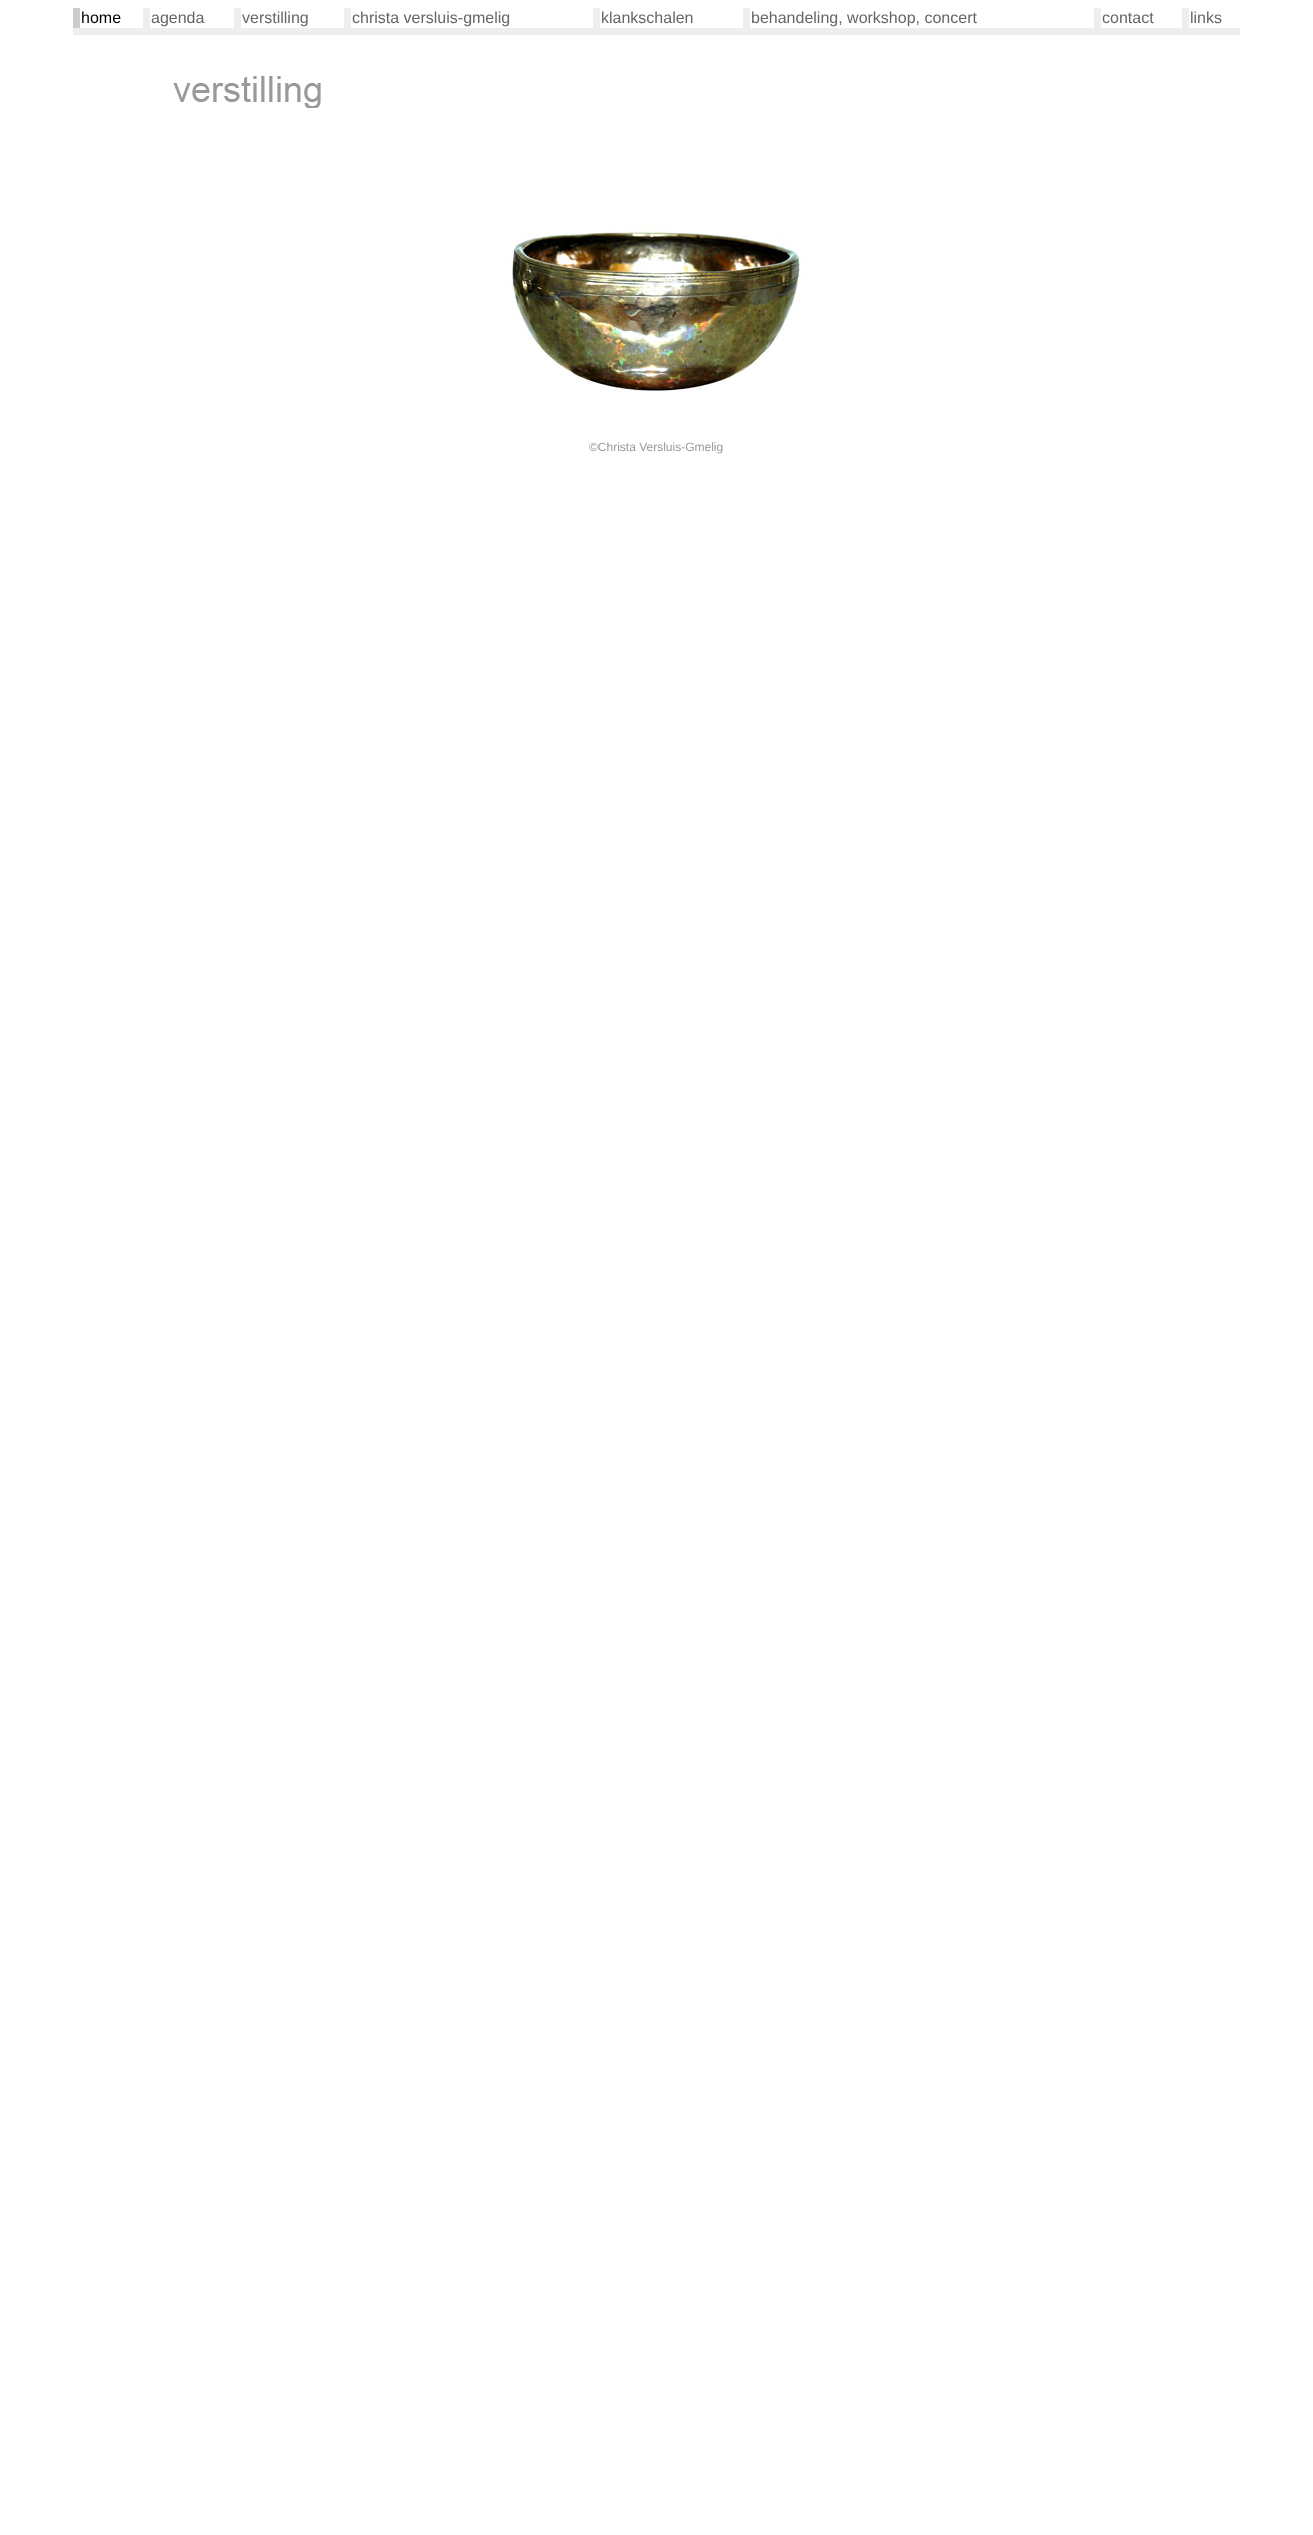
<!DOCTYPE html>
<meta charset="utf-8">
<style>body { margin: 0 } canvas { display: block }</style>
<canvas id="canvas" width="1313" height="2535"></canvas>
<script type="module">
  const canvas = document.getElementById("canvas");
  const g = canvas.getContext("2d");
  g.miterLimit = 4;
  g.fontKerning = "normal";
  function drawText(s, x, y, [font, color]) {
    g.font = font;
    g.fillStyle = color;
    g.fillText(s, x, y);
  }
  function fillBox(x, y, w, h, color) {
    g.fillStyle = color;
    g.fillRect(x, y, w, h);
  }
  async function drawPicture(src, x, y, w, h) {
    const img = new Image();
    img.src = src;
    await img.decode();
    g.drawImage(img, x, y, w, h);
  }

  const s1 = ["16px Liberation Sans", "#000000"];
  const s2 = ["16px Liberation Sans", "#666666"];
  const s3 = ["12px Liberation Sans", "#999999"];

  fillBox(0, 0, 1313, 2535, "#FFFFFF");
  fillBox(73, 8, 7, 20, "#CCCCCC");
  drawText("home", 81, 23, s1);
  fillBox(143, 8, 7, 20, "#EEEEEE");
  drawText("agenda", 151, 23, s2);
  fillBox(234, 8, 7, 20, "#EEEEEE");
  drawText("verstilling", 242, 23, s2);
  fillBox(344, 8, 7, 20, "#EEEEEE");
  drawText("christa versluis-gmelig", 352, 23, s2);
  fillBox(593, 8, 7, 20, "#EEEEEE");
  drawText("klankschalen", 601, 23, s2);
  fillBox(743, 8, 7, 20, "#EEEEEE");
  drawText("behandeling, workshop, concert", 751, 23, s2);
  fillBox(1094, 8, 7, 20, "#EEEEEE");
  drawText("contact", 1102, 23, s2);
  fillBox(1182, 8, 7, 20, "#EEEEEE");
  drawText("links", 1190, 23, s2);
  fillBox(73, 28, 1167, 7, "#EEEEEE");
  await drawPicture("pic1.png", 173, 76, 148, 32);
  await drawPicture("pic2.png", 506, 225, 296, 168);
  drawText("©Christa Versluis-Gmelig", 589, 451, s3);
</script>
